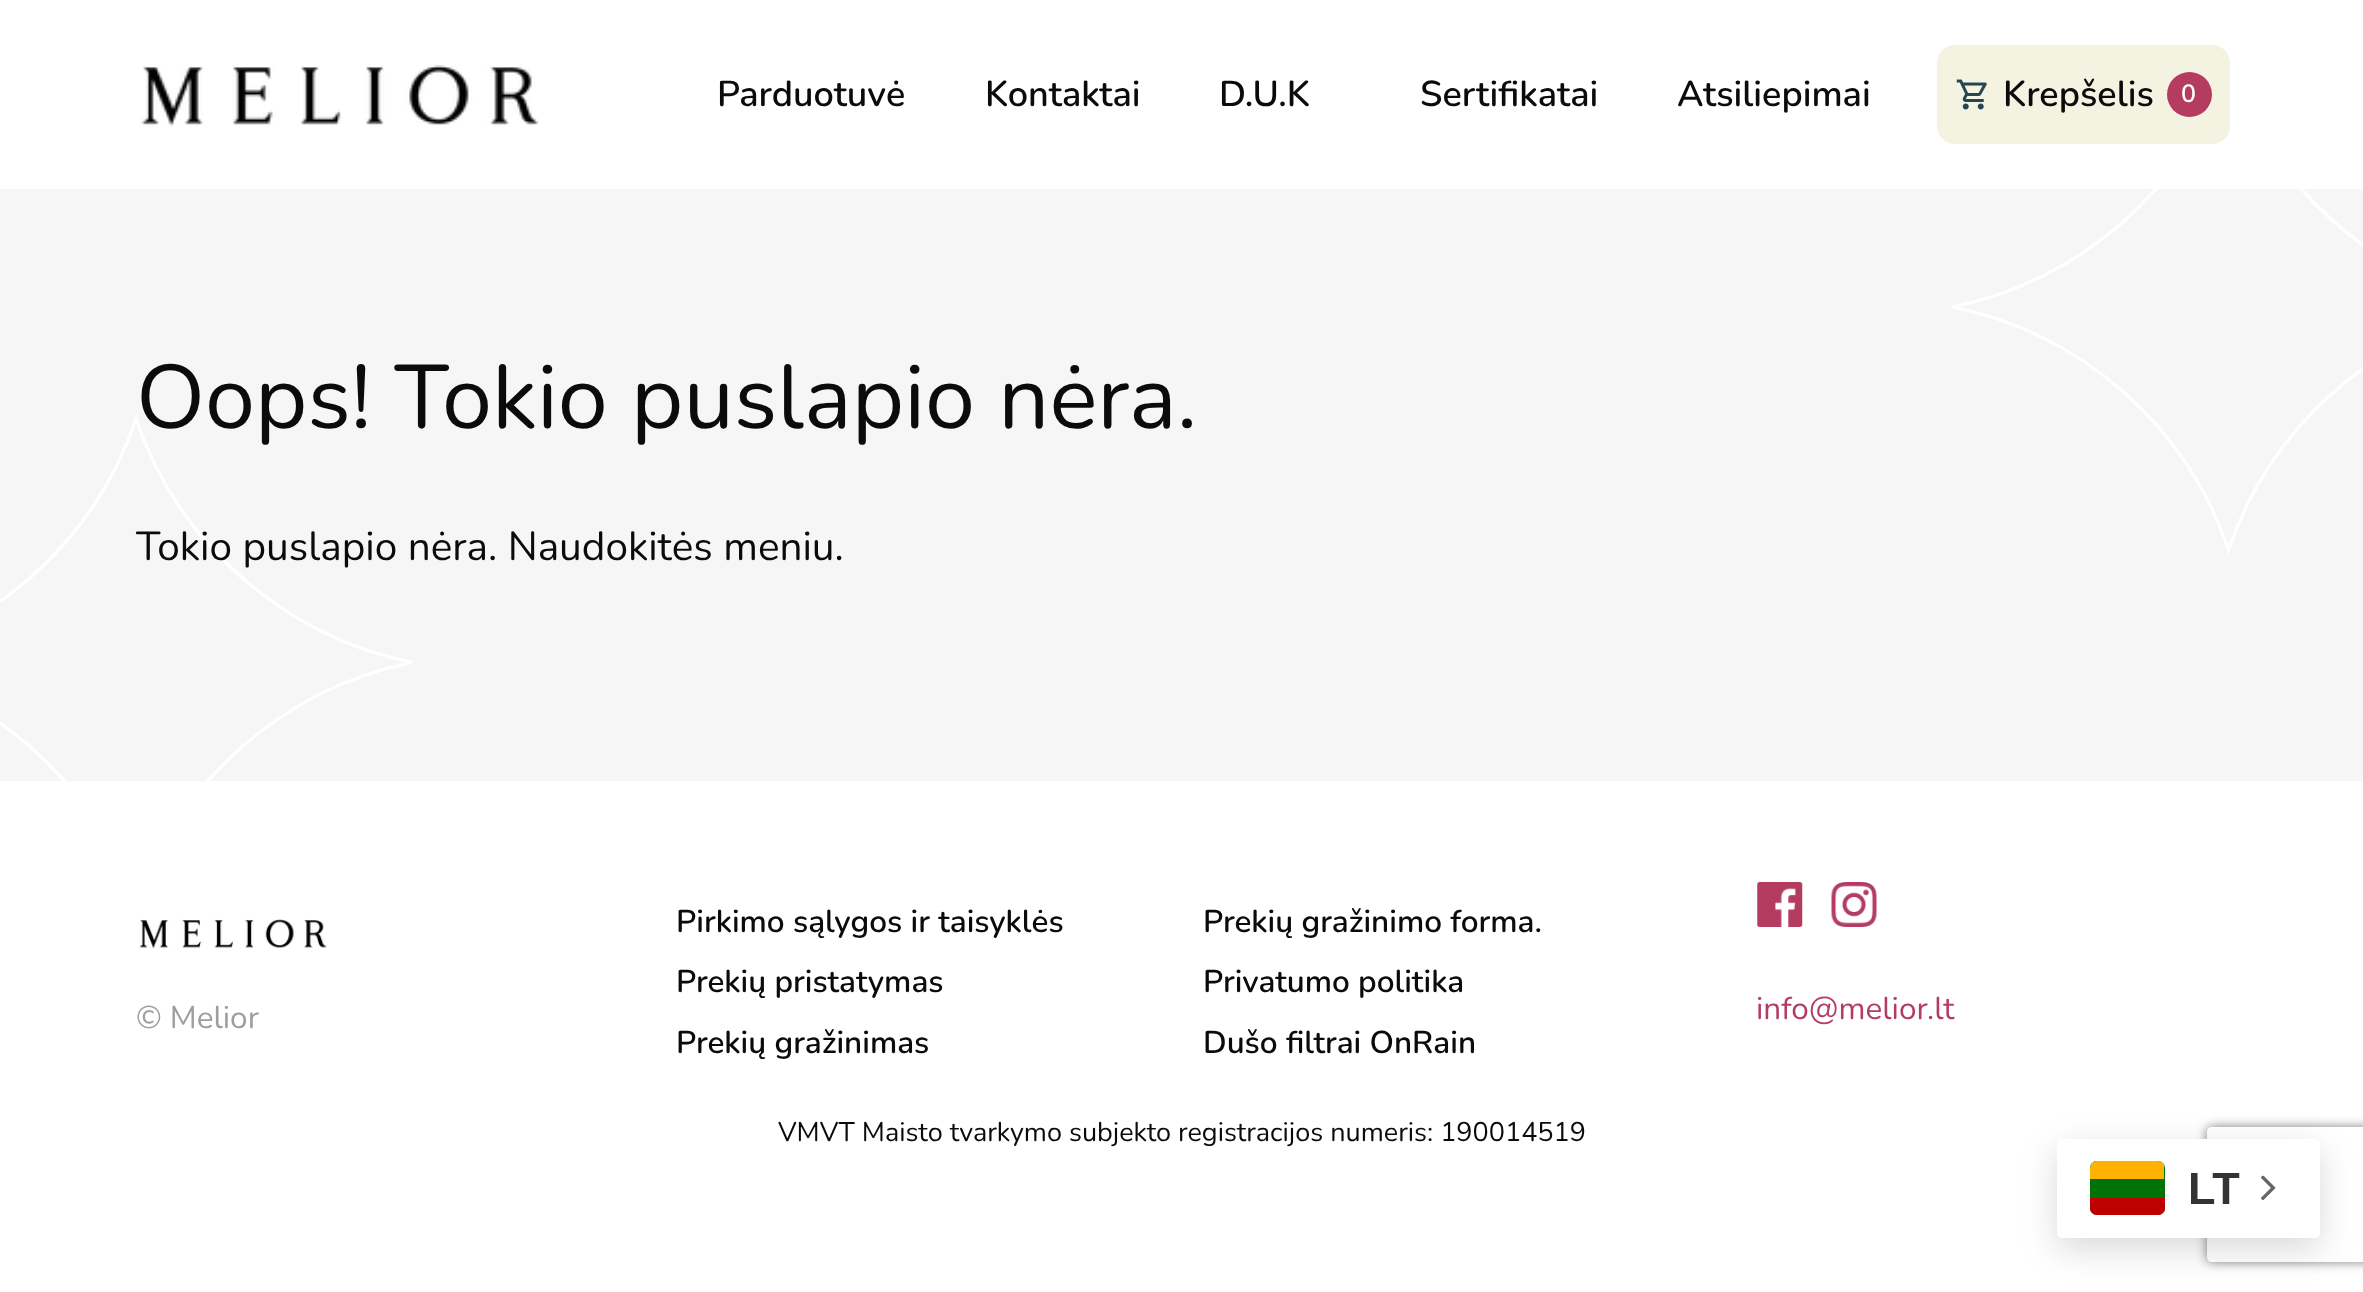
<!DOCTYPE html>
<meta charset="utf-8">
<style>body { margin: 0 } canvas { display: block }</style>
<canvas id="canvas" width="2363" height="1292"></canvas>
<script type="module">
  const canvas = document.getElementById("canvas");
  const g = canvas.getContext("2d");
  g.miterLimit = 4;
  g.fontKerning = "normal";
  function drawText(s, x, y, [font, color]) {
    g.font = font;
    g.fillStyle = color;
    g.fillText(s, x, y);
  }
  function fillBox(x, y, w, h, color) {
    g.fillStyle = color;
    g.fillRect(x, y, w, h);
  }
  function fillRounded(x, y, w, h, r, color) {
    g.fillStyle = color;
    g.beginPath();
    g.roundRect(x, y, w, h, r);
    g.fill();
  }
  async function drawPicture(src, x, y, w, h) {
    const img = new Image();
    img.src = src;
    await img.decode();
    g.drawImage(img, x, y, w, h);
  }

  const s1 = ["600 36px Nunito", "#0D0A0B"];
  const s2 = ["600 25px Nunito", "#FFFFFF"];
  const s3 = ["90px Nunito", "#0D0A0B"];
  const s4 = ["40.5px Nunito", "#0D0A0B"];
  const s5 = ["31.5px Nunito", "#9E9E9E"];
  const s6 = ["600 31.5px Nunito", "#0D0A0B"];
  const s7 = ["31.5px Nunito", "#B53C61"];
  const s8 = ["27px Nunito", "#0D0A0B"];
  const s9 = ["bold 45px Liberation Sans", "#333333"];

  fillBox(0, 0, 2363, 1292, "#FFFFFF");
  await drawPicture("pic1.png", 141, 64, 398, 63);
  drawText("Parduotuvė", 717, 106, s1);
  drawText("Kontaktai", 985, 106, s1);
  drawText("D.U.K", 1219, 106, s1);
  drawText("Sertifikatai", 1420, 106, s1);
  drawText("Atsiliepimai", 1677, 106, s1);
  fillRounded(1937, 45, 293, 99, 18, "#F4F2E1");
  await drawPicture("pic2.png", 1956, 79, 31, 31);
  drawText("Krepšelis", 2003, 106, s1);
  g.fillStyle = "#B53C61";
  g.beginPath();
  g.arc(2189.5, 94.5, 22.5, 0, Math.PI * 2);
  g.fill();
  drawText("0", 2181, 102, s2);
  fillBox(0, 189, 2363, 592, "#F6F6F6");
  g.save();
  g.beginPath();
  g.rect(0, 414, 421, 367);
  g.clip();
  g.beginPath();
  g.moveTo(412.5, 662.5);
  g.bezierCurveTo(283.5, 636, 178.5, 543.5, 136, 419);
  g.bezierCurveTo(94, 543.5, -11.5, 636, -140, 662.5);
  g.bezierCurveTo(-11.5, 688.5, 94, 781, 136, 905.5);
  g.bezierCurveTo(178.5, 781, 283.5, 688.5, 412.5, 662.5);
  g.closePath();
  g.strokeStyle = "#FFFFFF";
  g.lineWidth = 3.3;
  g.stroke();
  g.restore();
  drawText("Oops! Tokio puslapio nėra.", 136, 428, s3);
  drawText("Tokio puslapio nėra. Naudokitės meniu.", 136, 560, s4);
  g.save();
  g.beginPath();
  g.rect(1944, 189, 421, 366);
  g.clip();
  g.beginPath();
  g.moveTo(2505, 307);
  g.bezierCurveTo(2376, 280.5, 2271, 188, 2228.5, 63.5);
  g.bezierCurveTo(2186.5, 188, 2081, 280.5, 1952.5, 307);
  g.bezierCurveTo(2081, 333, 2186.5, 425.5, 2228.5, 550);
  g.bezierCurveTo(2271, 425.5, 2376, 333, 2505, 307);
  g.closePath();
  g.strokeStyle = "#FFFFFF";
  g.lineWidth = 3.3;
  g.stroke();
  g.restore();
  await drawPicture("pic3.png", 139, 919, 188, 30);
  drawText("© Melior", 136, 1028, s5);
  drawText("Pirkimo sąlygos ir taisyklės", 676, 932, s6);
  drawText("Prekių gražinimo forma.", 1203, 932, s6);
  drawText("Prekių pristatymas", 676, 992, s6);
  drawText("Privatumo politika", 1203, 992, s6);
  drawText("Prekių gražinimas", 676, 1053, s6);
  drawText("Dušo filtrai OnRain", 1203, 1053, s6);
  await drawPicture("pic4.png", 1757, 882, 46, 45);
  await drawPicture("pic5.png", 1831, 882, 46, 45);
  drawText("info@melior.lt", 1756, 1019, s7);
  drawText("VMVT Maisto tvarkymo subjekto registracijos numeris: 190014519", 778, 1141, s8);
  g.save();
  g.beginPath();
  g.moveTo(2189, 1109);
  g.lineTo(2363, 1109);
  g.lineTo(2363, 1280);
  g.lineTo(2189, 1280);
  g.closePath();
  g.moveTo(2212, 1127);
  g.lineTo(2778, 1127);
  g.bezierCurveTo(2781, 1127, 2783, 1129, 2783, 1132);
  g.lineTo(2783, 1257);
  g.bezierCurveTo(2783, 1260, 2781, 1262, 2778, 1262);
  g.lineTo(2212, 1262);
  g.bezierCurveTo(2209, 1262, 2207, 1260, 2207, 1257);
  g.lineTo(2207, 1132);
  g.bezierCurveTo(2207, 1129, 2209, 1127, 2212, 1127);
  g.closePath();
  g.clip("evenodd");
  g.fillStyle = "#808080";
  g.filter = "blur(5.5px)";
  g.beginPath();
  g.roundRect(2207, 1127, 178, 135, 5);
  g.fill();
  g.filter = "none";
  g.restore();
  g.fillStyle = "rgba(0, 0, 0, 0.15)";
  g.filter = "blur(17px)";
  g.beginPath();
  g.roundRect(2057, 1150, 263, 99, 5);
  g.fill();
  g.filter = "none";
  fillRounded(2057, 1139, 263, 99, 5, "#FFFFFF");
  fillRounded(2090, 1161, 75, 54, 7, "#007308");
  g.fillStyle = "#BF0000";
  g.beginPath();
  g.roundRect(2090, 1198, 75, 17, [0, 0, 7, 7]);
  g.fill();
  g.save();
  g.beginPath();
  g.roundRect(2090, 1161, 75, 54, 7);
  g.clip();
  g.fillStyle = "#FFB300";
  g.beginPath();
  g.roundRect(2090, 1161, 74, 18, [7, 0, 0, 0]);
  g.fill();
  g.restore();
  drawText("LT", 2188, 1204, s9);
  await drawPicture("pic6.png", 2261, 1175, 15, 25);
</script>
